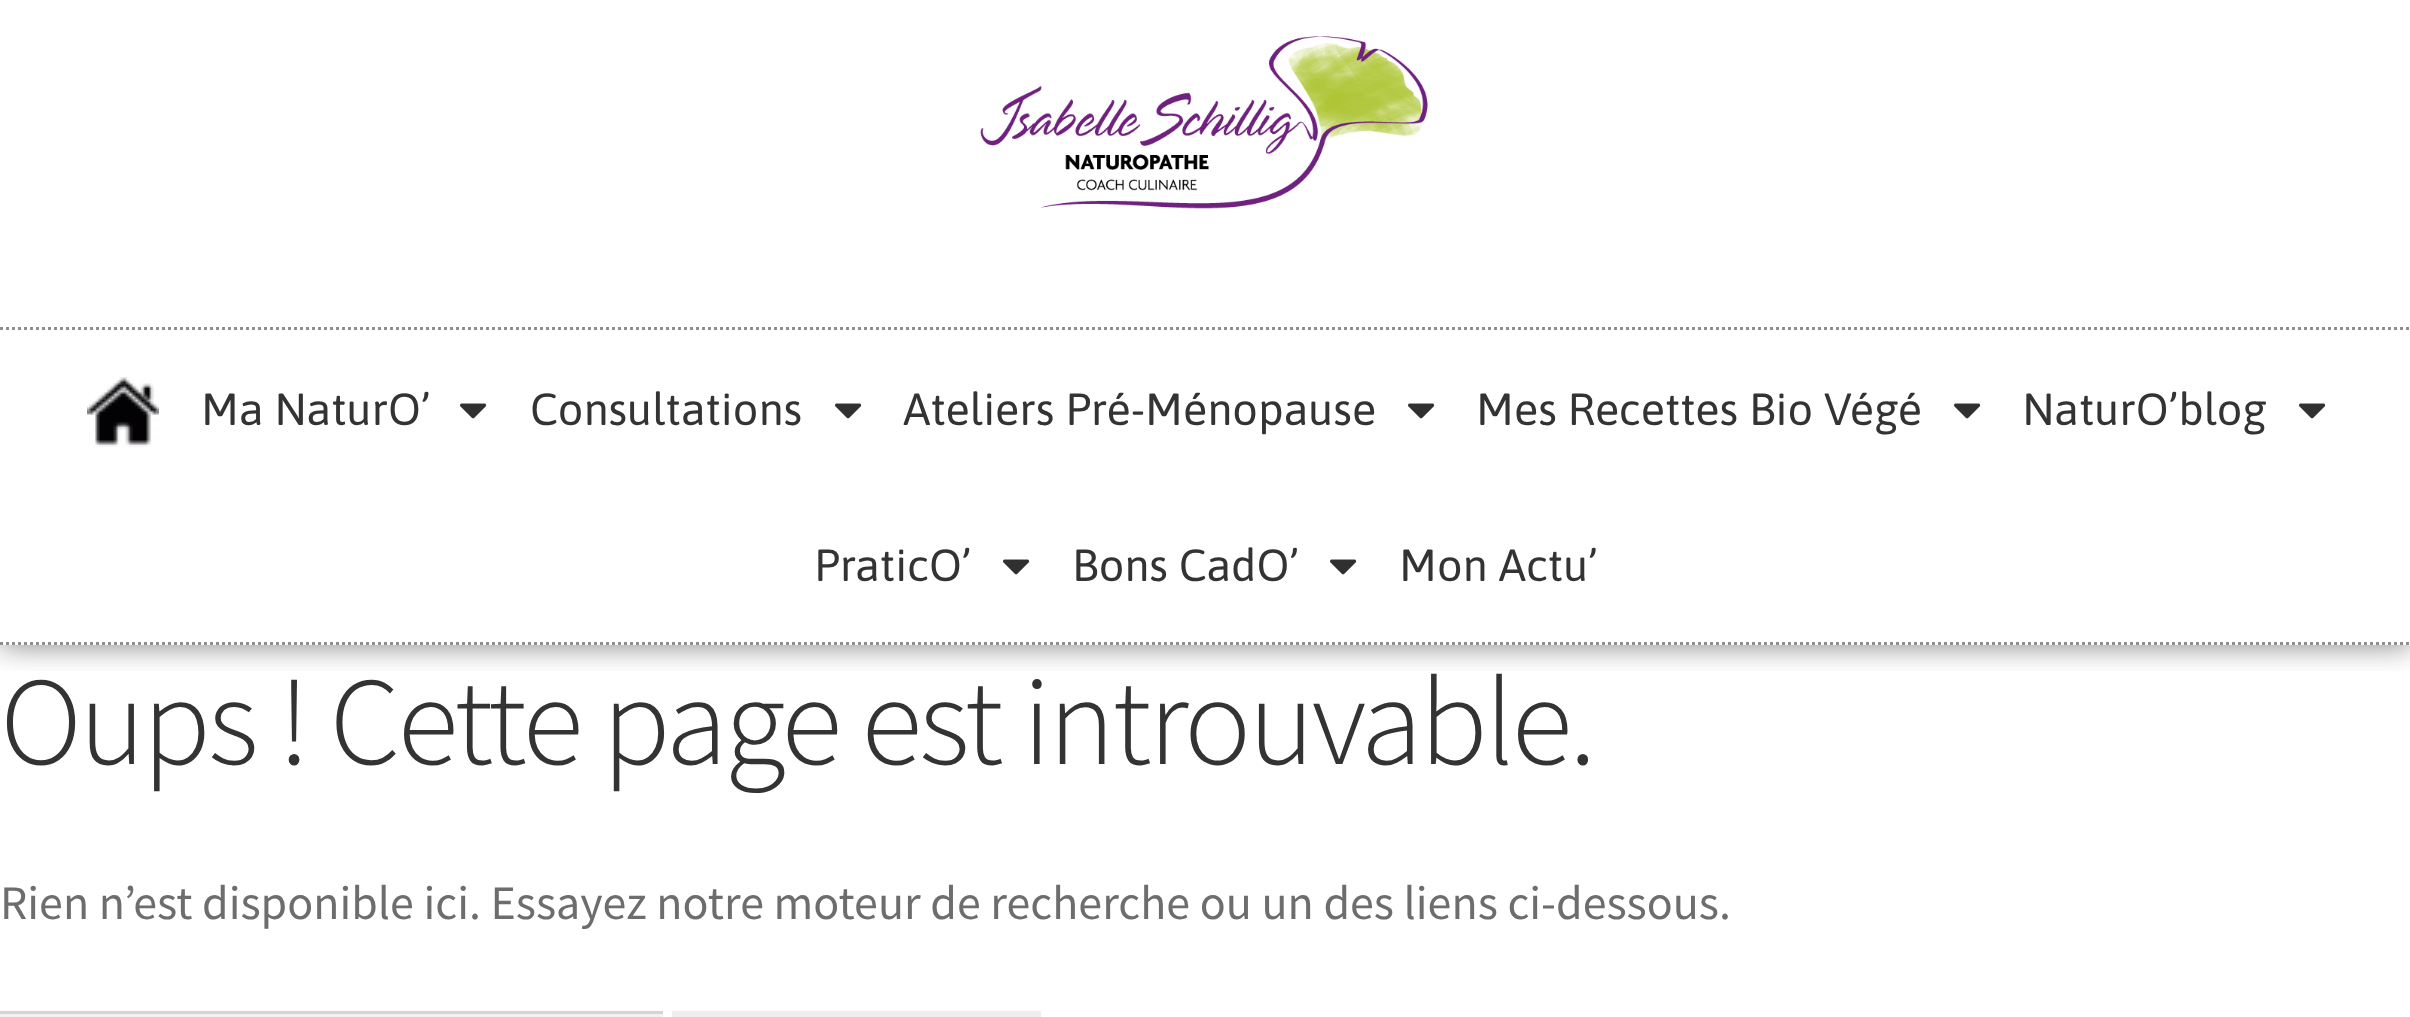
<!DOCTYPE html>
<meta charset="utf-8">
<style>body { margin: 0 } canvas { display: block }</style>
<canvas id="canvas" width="2410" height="1017"></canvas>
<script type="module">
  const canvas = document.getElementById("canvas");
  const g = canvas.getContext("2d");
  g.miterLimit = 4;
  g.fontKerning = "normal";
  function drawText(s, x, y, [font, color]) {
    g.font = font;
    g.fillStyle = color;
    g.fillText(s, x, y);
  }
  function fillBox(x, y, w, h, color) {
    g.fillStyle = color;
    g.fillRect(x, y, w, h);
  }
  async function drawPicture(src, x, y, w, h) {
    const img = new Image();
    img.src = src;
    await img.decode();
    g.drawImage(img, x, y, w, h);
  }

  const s1 = ["45px Asap", "#333333"];
  const s2 = ["300 125.7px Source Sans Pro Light", "#333333"];
  const s3 = ["48px Source Sans Pro", "#6D6D6D"];

  fillBox(0, 0, 2410, 1017, "#FFFFFF");
  g.save();
  g.beginPath();
  g.rect(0, 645, 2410, 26);
  g.clip();
  g.fillStyle = "rgba(0, 0, 0, 0.5)";
  g.filter = "blur(15px)";
  g.beginPath();
  g.rect(0, 0, 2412, 645);
  g.fill();
  g.filter = "none";
  g.restore();
  await drawPicture("pic1.png", 980, 36, 448, 173);
  g.beginPath();
  g.moveTo(0, 328.5);
  g.lineTo(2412, 328.5);
  g.strokeStyle = "#8E8E8E";
  g.lineWidth = 3;
  g.setLineDash([3, 3]);
  g.stroke();
  g.beginPath();
  g.moveTo(0, 643.5);
  g.lineTo(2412, 643.5);
  g.stroke();
  await drawPicture("pic2.png", 87, 377, 72, 70);
  drawText("Ma NaturO’", 201, 425, s1);
  await drawPicture("pic3.png", 460, 403, 27, 16);
  drawText("Consultations", 530, 425, s1);
  await drawPicture("pic3.png", 835, 403, 27, 16);
  drawText("Ateliers Pré-Ménopause", 903, 425, s1);
  await drawPicture("pic3.png", 1408, 403, 27, 16);
  drawText("Mes Recettes Bio Végé", 1476, 425, s1);
  await drawPicture("pic3.png", 1954, 403, 27, 16);
  drawText("NaturO’blog", 2022, 425, s1);
  await drawPicture("pic3.png", 2299, 403, 27, 16);
  drawText("PraticO’", 814, 581, s1);
  await drawPicture("pic3.png", 1003, 559, 27, 16);
  drawText("Bons CadO’", 1072, 581, s1);
  await drawPicture("pic3.png", 1330, 559, 27, 16);
  drawText("Mon Actu’", 1399, 581, s1);
  g.letterSpacing = "-3px";
  drawText("Oups ! Cette page est introuvable.", 0, 764, s2);
  g.letterSpacing = "0px";
  drawText("Rien n’est disponible ici. Essayez notre moteur de recherche ou un des liens ci-dessous.", 0, 919, s3);
  fillBox(0, 1014, 663, 3, "#F2F2F2");
  fillBox(0, 1011, 663, 3, "#D4D4D4");
  fillBox(672, 1011, 369, 6, "#EEEEEE");
</script>
